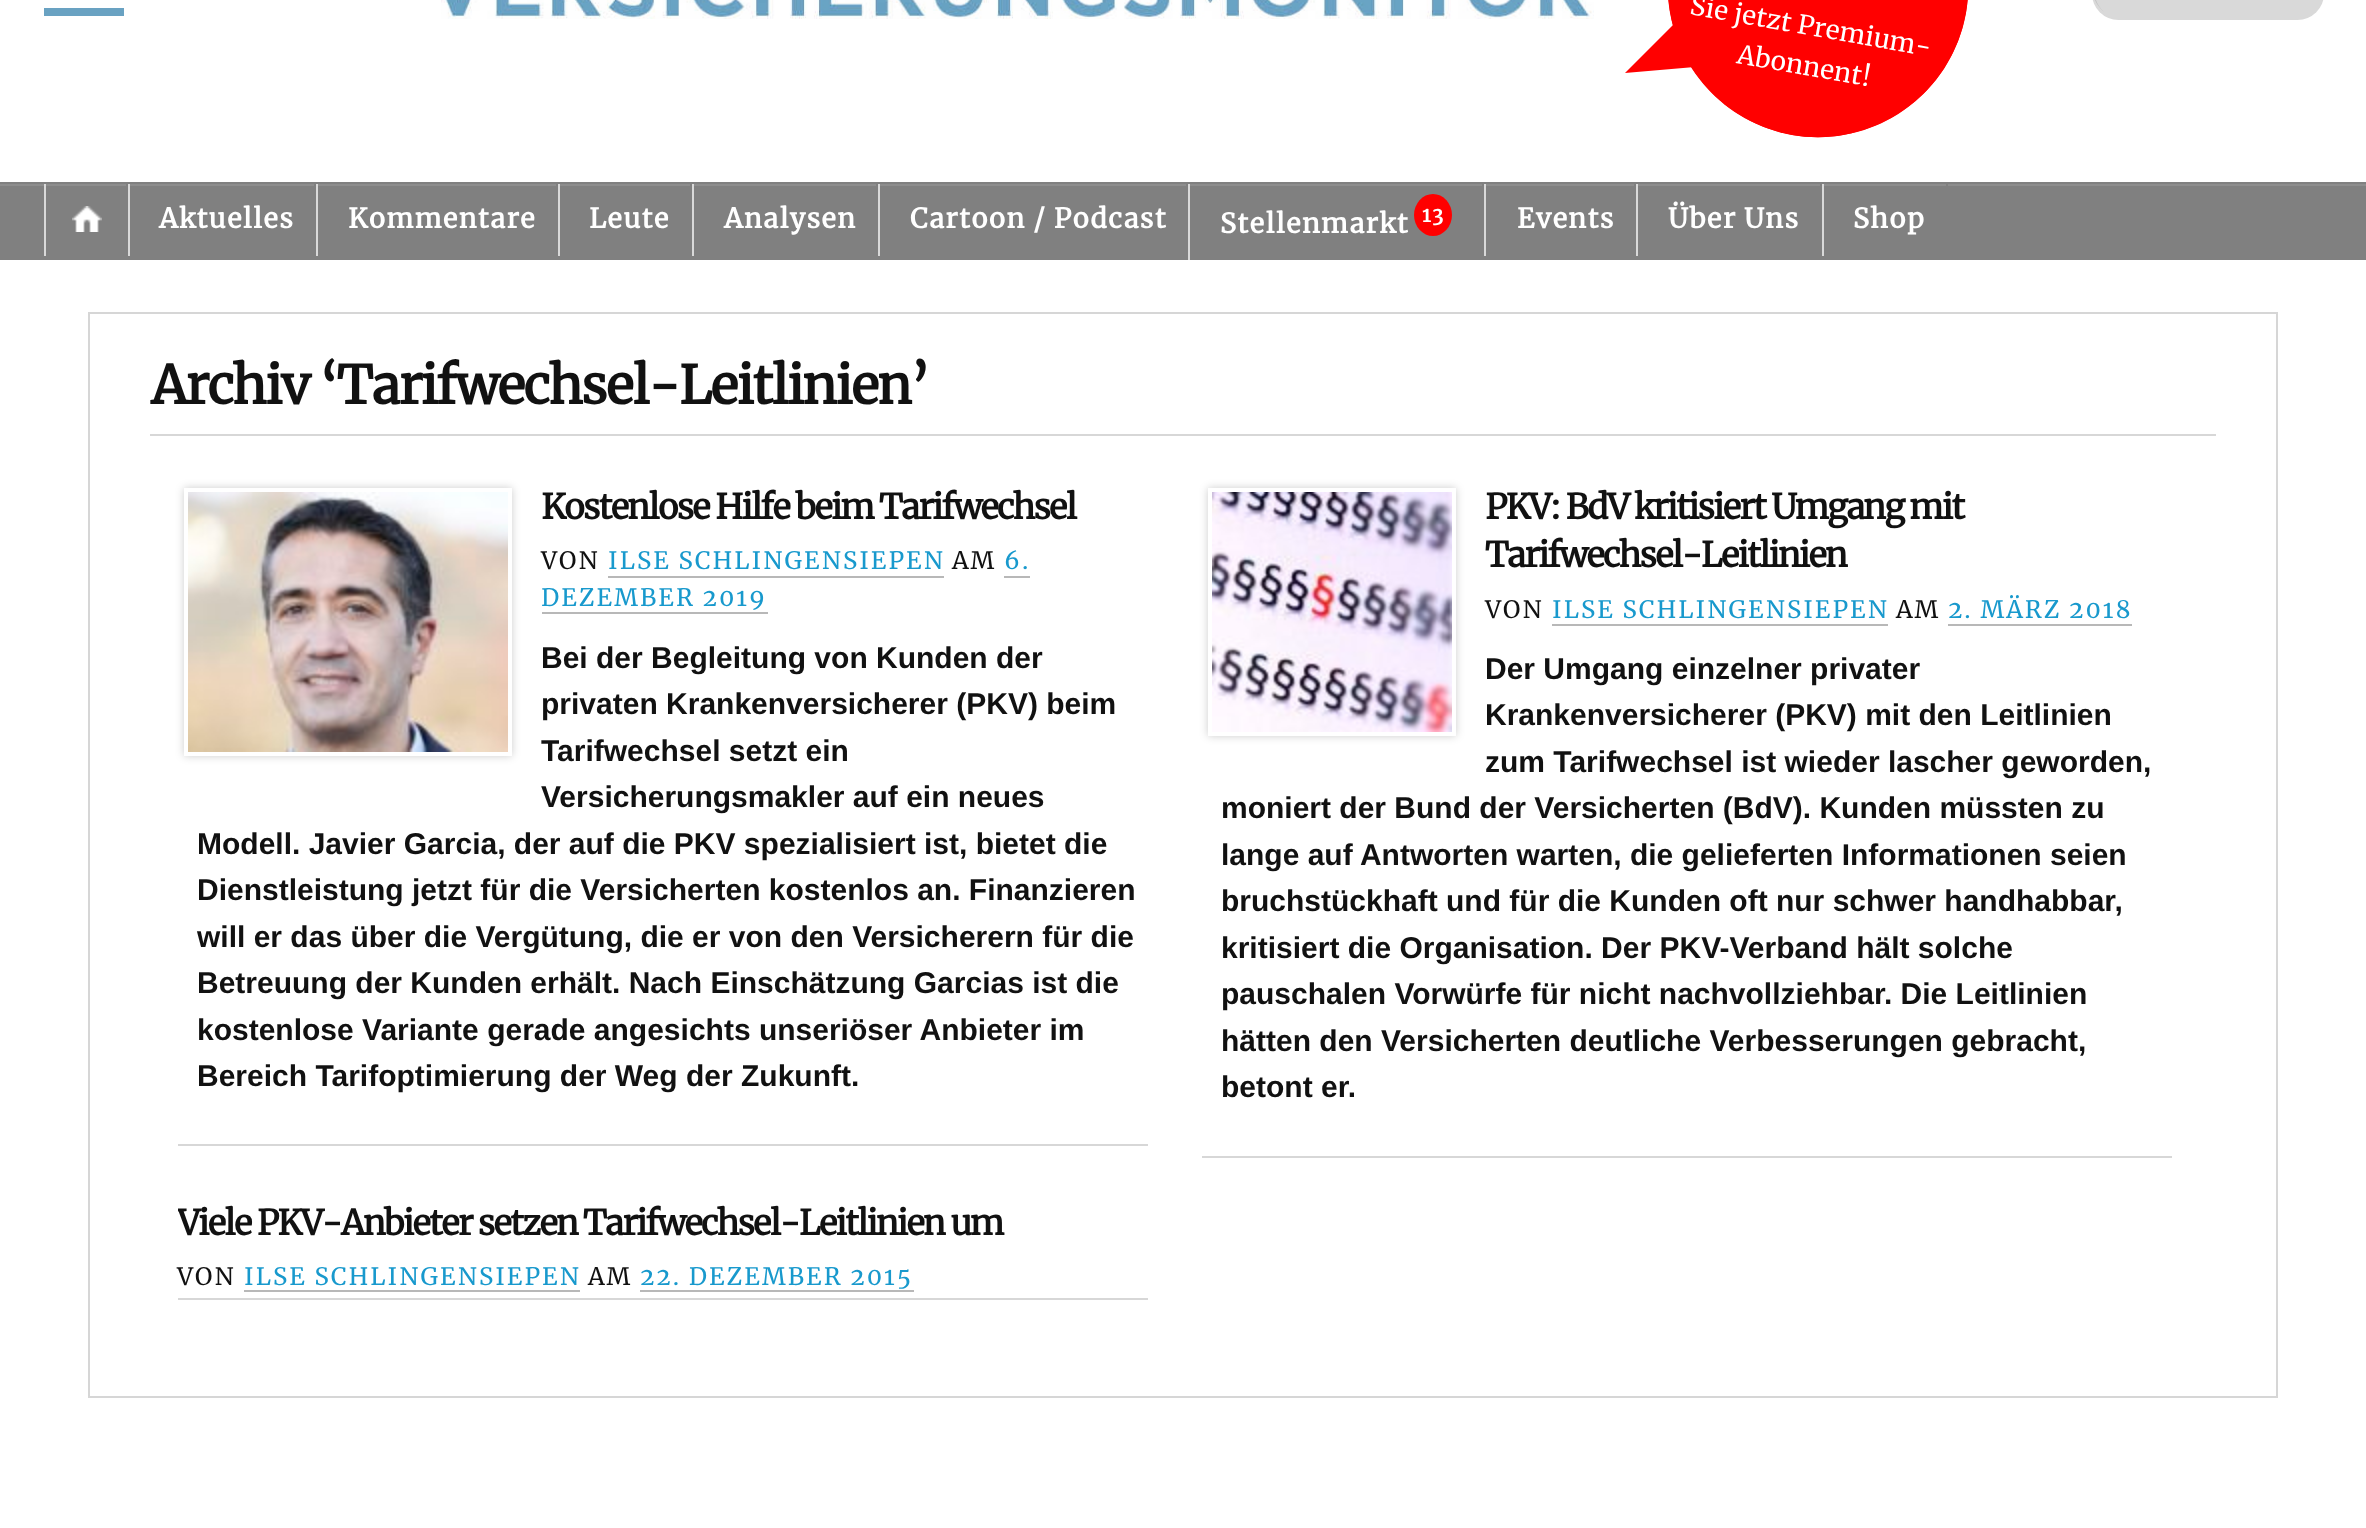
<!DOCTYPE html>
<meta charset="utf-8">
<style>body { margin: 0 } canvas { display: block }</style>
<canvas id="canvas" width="2366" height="1528"></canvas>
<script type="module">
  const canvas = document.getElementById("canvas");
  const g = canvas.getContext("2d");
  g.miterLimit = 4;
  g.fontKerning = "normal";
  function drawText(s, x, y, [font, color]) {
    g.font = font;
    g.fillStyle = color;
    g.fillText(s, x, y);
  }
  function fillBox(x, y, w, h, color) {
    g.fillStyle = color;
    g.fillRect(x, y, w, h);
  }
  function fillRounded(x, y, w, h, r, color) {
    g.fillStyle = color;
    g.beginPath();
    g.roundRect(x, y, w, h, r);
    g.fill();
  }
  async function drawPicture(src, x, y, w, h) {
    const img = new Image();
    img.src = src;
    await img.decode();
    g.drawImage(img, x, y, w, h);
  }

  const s1 = ["bold 27px Merriweather", "#FFFFFF"];
  const s2 = ["bold 20px Merriweather", "#FFFFFF"];
  const s3 = ["bold 52.5px Merriweather", "#111111"];
  const s4 = ["bold 34.5px Merriweather", "#111111"];
  const s5 = ["24px Merriweather", "#111111"];
  const s6 = ["24px Merriweather", "#1899CD"];
  const s7 = ["bold 30px Liberation Sans", "#111111"];

  fillBox(0, 0, 2366, 1528, "#FFFFFF");
  fillBox(44, 8, 80, 8, "#69A2C2");
  await drawPicture("pic1.png", 441, 0, 1153, 19);
  g.fillStyle = "#FF0000";
  g.beginPath();
  g.moveTo(1844, -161);
  g.bezierCurveTo(1926, -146, 1980, -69, 1966, 13);
  g.bezierCurveTo(1951, 95, 1874, 149, 1792, 135);
  g.bezierCurveTo(1710, 120, 1656, 43, 1670, -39);
  g.bezierCurveTo(1685, -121, 1762, -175, 1844, -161);
  g.closePath();
  g.fill();
  g.beginPath();
  g.moveTo(1843, -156);
  g.bezierCurveTo(1922, -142, 1974.5, -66.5, 1961, 12);
  g.bezierCurveTo(1947, 91, 1871.5, 143.5, 1793, 130);
  g.bezierCurveTo(1714, 116, 1661.5, 40.5, 1675, -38);
  g.bezierCurveTo(1689, -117, 1764.5, -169.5, 1843, -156);
  g.closePath();
  g.strokeStyle = "#FF0000";
  g.lineWidth = 10;
  g.stroke();
  g.beginPath();
  g.moveTo(1676, 22);
  g.lineTo(1718, 65);
  g.lineTo(1625, 73);
  g.closePath();
  g.fill();
  g.font = "26px Merriweather";
  g.fillStyle = "#FFFFFF";
  g.save();
  g.translate(1689, 14);
  g.rotate(10 * Math.PI / 180);
  g.fillText("Sie jetzt Premium-", 0, 0);
  g.restore();
  g.save();
  g.translate(1736, 63);
  g.rotate(10 * Math.PI / 180);
  g.fillText("Abonnent!", 0, 0);
  g.restore();
  fillRounded(2092, -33, 232, 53, 33, "#D9D9D9");
  g.fillStyle = "rgba(0, 0, 0, 0.1)";
  g.beginPath();
  g.moveTo(2127, -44);
  g.lineTo(2293, -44);
  g.bezierCurveTo(2302, -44, 2310, -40, 2316, -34);
  g.bezierCurveTo(2310, -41, 2301, -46, 2291, -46);
  g.lineTo(2125, -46);
  g.bezierCurveTo(2107, -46, 2092, -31, 2092, -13);
  g.bezierCurveTo(2092, -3, 2097, 6, 2104, 12);
  g.bezierCurveTo(2083, -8, 2097, -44, 2127, -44);
  g.closePath();
  g.fill();
  fillBox(0, 182, 2366, 78, "#808080");
  g.save();
  g.beginPath();
  g.rect(0, 184, 2366, 76);
  g.clip();
  g.fillStyle = "#8D8D8D";
  g.beginPath();
  g.moveTo(-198, -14);
  g.lineTo(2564, -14);
  g.lineTo(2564, 458);
  g.lineTo(-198, 458);
  g.closePath();
  g.moveTo(0, 186);
  g.lineTo(2366, 186);
  g.bezierCurveTo(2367, 186, 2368, 187, 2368, 188);
  g.lineTo(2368, 264);
  g.bezierCurveTo(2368, 265, 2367, 266, 2366, 266);
  g.lineTo(0, 266);
  g.bezierCurveTo(-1, 266, -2, 265, -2, 264);
  g.lineTo(-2, 188);
  g.bezierCurveTo(-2, 187, -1, 186, 0, 186);
  g.closePath();
  g.fill("evenodd");
  g.restore();
  await drawPicture("pic2.png", 72, 206, 30, 26);
  fillBox(126, 184, 2, 2, "#808080");
  fillBox(44, 184, 2, 72, "#D9D9D9");
  fillBox(314, 184, 2, 2, "#808080");
  fillBox(128, 184, 2, 72, "#D9D9D9");
  g.letterSpacing = "1.25px";
  drawText("Aktuelles", 159, 228, s1);
  fillBox(556, 184, 2, 2, "#808080");
  fillBox(316, 184, 2, 72, "#D9D9D9");
  drawText("Kommentare", 348, 228, s1);
  fillBox(690, 184, 2, 2, "#808080");
  fillBox(558, 184, 2, 72, "#D9D9D9");
  drawText("Leute", 589, 228, s1);
  fillBox(876, 184, 2, 2, "#808080");
  fillBox(692, 184, 2, 72, "#D9D9D9");
  drawText("Analysen", 724, 228, s1);
  fillBox(1186, 184, 2, 2, "#808080");
  fillBox(878, 184, 2, 72, "#D9D9D9");
  drawText("Cartoon / Podcast", 910, 228, s1);
  fillBox(1482, 184, 2, 2, "#808080");
  fillBox(1188, 184, 2, 76, "#D9D9D9");
  drawText("Stellenmarkt", 1220, 233, s1);
  g.fillStyle = "#FF0000";
  g.beginPath();
  g.ellipse(1433, 215, 19, 21, 0, 0, Math.PI * 2);
  g.fill();
  drawText("13", 1422, 222, s2);
  fillBox(1634, 184, 2, 2, "#808080");
  fillBox(1484, 184, 2, 72, "#D9D9D9");
  drawText("Events", 1517, 228, s1);
  fillBox(1820, 184, 2, 2, "#808080");
  fillBox(1636, 184, 2, 72, "#D9D9D9");
  drawText("Über Uns", 1668, 228, s1);
  fillBox(1946, 184, 2, 2, "#808080");
  fillBox(1822, 184, 2, 72, "#D9D9D9");
  drawText("Shop", 1853, 228, s1);
  g.strokeStyle = "#D6D6D6";
  g.lineWidth = 2;
  g.strokeRect(89, 313, 2188, 1084);
  fillBox(150, 434, 2066, 2, "#D7D7D7");
  g.letterSpacing = "-2px";
  drawText("Archiv ‘Tarifwechsel-Leitlinien’", 151, 404, s3);
  fillBox(178, 1144, 970, 2, "#D7D7D7");
  g.save();
  g.beginPath();
  g.moveTo(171, 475);
  g.lineTo(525, 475);
  g.lineTo(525, 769);
  g.lineTo(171, 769);
  g.closePath();
  g.moveTo(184, 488);
  g.lineTo(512, 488);
  g.lineTo(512, 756);
  g.lineTo(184, 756);
  g.closePath();
  g.clip("evenodd");
  g.fillStyle = "rgba(0, 0, 0, 0.2)";
  g.filter = "blur(4px)";
  g.beginPath();
  g.rect(184, 488, 328, 268);
  g.fill();
  g.filter = "none";
  g.restore();
  await drawPicture("pic3.png", 188, 492, 320, 260);
  drawText("Kostenlose Hilfe beim Tarifwechsel", 541, 519, s4);
  g.letterSpacing = "2px";
  drawText("VON", 541, 569, s5);
  drawText("ILSE SCHLINGENSIEPEN", 608, 569, s6);
  fillBox(608, 576, 336, 2, "#B8B8B8");
  drawText("AM", 952, 569, s5);
  drawText("6.", 1004, 569, s6);
  fillBox(1004, 576, 26, 2, "#B8B8B8");
  drawText("DEZEMBER 2019", 541, 606, s6);
  fillBox(542, 612, 226, 2, "#B8B8B8");
  g.letterSpacing = "0px";
  drawText("Bei der Begleitung von Kunden der", 541, 668, s7);
  drawText("privaten Krankenversicherer (PKV) beim", 541, 714, s7);
  drawText("Tarifwechsel setzt ein", 541, 761, s7);
  drawText("Versicherungsmakler auf ein neues", 541, 807, s7);
  drawText("Modell. Javier Garcia, der auf die PKV spezialisiert ist, bietet die", 197, 854, s7);
  drawText("Dienstleistung jetzt für die Versicherten kostenlos an. Finanzieren", 197, 900, s7);
  drawText("will er das über die Vergütung, die er von den Versicherern für die", 197, 947, s7);
  drawText("Betreuung der Kunden erhält. Nach Einschätzung Garcias ist die", 197, 993, s7);
  drawText("kostenlose Variante gerade angesichts unseriöser Anbieter im", 197, 1040, s7);
  drawText("Bereich Tarifoptimierung der Weg der Zukunft.", 197, 1086, s7);
  fillBox(1202, 1156, 970, 2, "#D7D7D7");
  g.save();
  g.beginPath();
  g.moveTo(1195, 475);
  g.lineTo(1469, 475);
  g.lineTo(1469, 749);
  g.lineTo(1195, 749);
  g.closePath();
  g.moveTo(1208, 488);
  g.lineTo(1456, 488);
  g.lineTo(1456, 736);
  g.lineTo(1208, 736);
  g.closePath();
  g.clip("evenodd");
  g.fillStyle = "rgba(0, 0, 0, 0.2)";
  g.filter = "blur(4px)";
  g.beginPath();
  g.rect(1208, 488, 248, 248);
  g.fill();
  g.filter = "none";
  g.restore();
  await drawPicture("pic4.png", 1212, 492, 240, 240);
  g.letterSpacing = "-2px";
  drawText("PKV: BdV kritisiert Umgang mit", 1485, 519, s4);
  drawText("Tarifwechsel-Leitlinien", 1485, 567, s4);
  g.letterSpacing = "2px";
  drawText("VON", 1485, 618, s5);
  drawText("ILSE SCHLINGENSIEPEN", 1552, 618, s6);
  fillBox(1552, 624, 336, 2, "#B8B8B8");
  drawText("AM", 1896, 618, s5);
  drawText("2. MÄRZ 2018", 1948, 618, s6);
  fillBox(1948, 624, 184, 2, "#B8B8B8");
  g.letterSpacing = "0px";
  drawText("Der Umgang einzelner privater", 1485, 679, s7);
  drawText("Krankenversicherer (PKV) mit den Leitlinien", 1485, 725, s7);
  drawText("zum Tarifwechsel ist wieder lascher geworden,", 1485, 772, s7);
  drawText("moniert der Bund der Versicherten (BdV). Kunden müssten zu", 1221, 818, s7);
  drawText("lange auf Antworten warten, die gelieferten Informationen seien", 1221, 865, s7);
  drawText("bruchstückhaft und für die Kunden oft nur schwer handhabbar,", 1221, 911, s7);
  drawText("kritisiert die Organisation. Der PKV-Verband hält solche", 1221, 958, s7);
  drawText("pauschalen Vorwürfe für nicht nachvollziehbar. Die Leitlinien", 1221, 1004, s7);
  drawText("hätten den Versicherten deutliche Verbesserungen gebracht,", 1221, 1051, s7);
  drawText("betont er.", 1221, 1097, s7);
  fillBox(178, 1298, 970, 2, "#D7D7D7");
  g.save();
  g.beginPath();
  g.rect(178, 1182, 970, 116);
  g.clip();
  g.letterSpacing = "-2px";
  drawText("Viele PKV-Anbieter setzen Tarifwechsel-Leitlinien um", 177, 1235, s4);
  g.restore();
  g.letterSpacing = "2px";
  drawText("VON", 177, 1285, s5);
  drawText("ILSE SCHLINGENSIEPEN", 244, 1285, s6);
  fillBox(244, 1290, 336, 2, "#B8B8B8");
  drawText("AM", 588, 1285, s5);
  drawText("22. DEZEMBER 2015", 640, 1285, s6);
  fillBox(640, 1290, 274, 2, "#B8B8B8");
</script>
